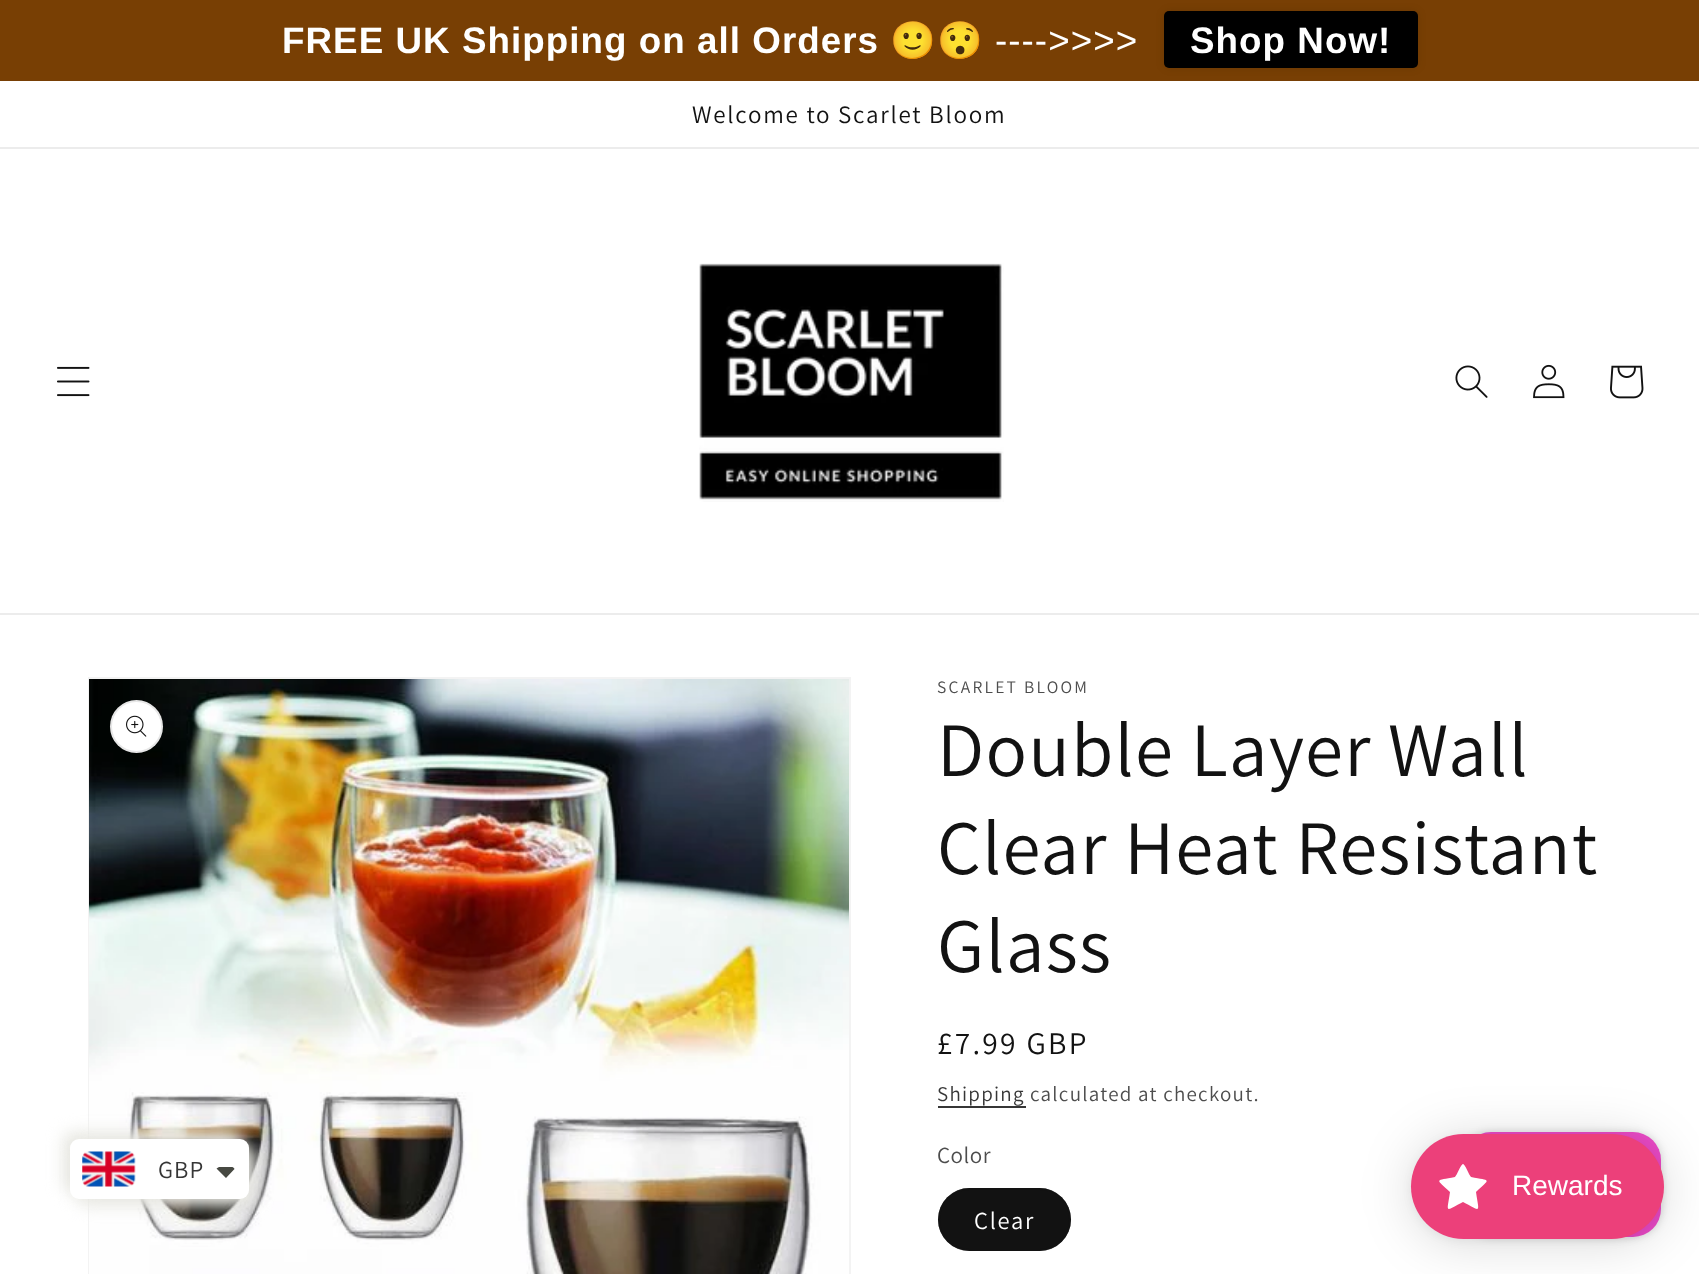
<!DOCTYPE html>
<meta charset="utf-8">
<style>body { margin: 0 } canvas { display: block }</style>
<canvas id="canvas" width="1699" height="1274"></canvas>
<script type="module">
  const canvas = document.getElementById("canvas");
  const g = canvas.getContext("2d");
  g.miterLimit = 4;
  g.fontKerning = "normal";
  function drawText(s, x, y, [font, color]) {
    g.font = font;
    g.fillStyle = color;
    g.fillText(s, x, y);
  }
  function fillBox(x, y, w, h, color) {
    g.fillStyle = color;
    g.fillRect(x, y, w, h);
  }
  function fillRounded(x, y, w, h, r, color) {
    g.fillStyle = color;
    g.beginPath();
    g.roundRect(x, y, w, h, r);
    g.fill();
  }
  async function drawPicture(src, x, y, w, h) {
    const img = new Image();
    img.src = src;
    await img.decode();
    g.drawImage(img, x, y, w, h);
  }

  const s1 = ["bold 36.75px Liberation Sans", "#FFFFFF"];
  const s2 = ["36.75px Noto Color Emoji", "#FFFFFF"];
  const s3 = ["36.75px Liberation Sans", "#FFFFFF"];
  const s4 = ["25px Assistant", "#121212"];
  const s5 = ["17.5px Assistant", "#4D4D4D"];
  const s6 = ["77px Assistant", "#121212"];
  const s7 = ["31.5px Assistant", "#121212"];
  const s8 = ["21px Assistant", "#363636"];
  const s9 = ["21px Assistant", "#4D4D4D"];
  const s10 = ["23px Assistant", "#4D4D4D"];
  const s11 = ["24.5px Assistant", "#FFFFFF"];
  const s12 = ["24.5px Assistant", "#363636"];
  const s13 = ["28px Liberation Sans", "#FFFFFF"];

  fillBox(0, 0, 1699, 1274, "#FFFFFF");
  fillBox(0, 0, 1699, 81, "#783F04");
  g.letterSpacing = "1.05px";
  drawText("FREE UK Shipping on all Orders", 282, 53, s1);
  drawText("🙂", 890, 53, s2);
  drawText("😯", 937, 53, s2);
  drawText("---->>>>", 995, 53, s3);
  g.fillStyle = "rgba(0, 0, 0, 0.1)";
  g.filter = "blur(4.5px)";
  g.beginPath();
  g.roundRect(1164, 11, 254, 57, 5);
  g.fill();
  g.filter = "none";
  fillRounded(1164, 11, 254, 57, 5, "#000000");
  drawText("Shop Now!", 1190, 53, s1);
  fillBox(0, 147, 1699, 2, "#ECECEC");
  g.letterSpacing = "1.75px";
  drawText("Welcome to Scarlet Bloom", 692, 123, s4);
  fillBox(0, 613, 1699, 2, "#ECECEC");
  await drawPicture("pic1.png", 57, 366, 33, 31);
  await drawPicture("pic2.png", 699, 263, 305, 239);
  await drawPicture("pic3.png", 1455, 365, 33, 33);
  await drawPicture("pic4.png", 1533, 364, 32, 35);
  await drawPicture("pic5.png", 1610, 365, 34, 34);
  g.strokeStyle = "#F3F3F3";
  g.lineWidth = 2;
  g.strokeRect(89, 678, 761, 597);
  await drawPicture("pic6.png", 89, 679, 760, 595);
  g.fillStyle = "#FFFFFF";
  g.beginPath();
  g.arc(136.5, 726.5, 26.5, 0, Math.PI * 2);
  g.fill();
  g.beginPath();
  g.arc(136.5, 726.5, 25.5, 0, Math.PI * 2);
  g.strokeStyle = "rgba(18, 18, 18, 0.1)";
  g.stroke();
  await drawPicture("pic7.png", 126, 715, 21, 22);
  g.letterSpacing = "2.25px";
  drawText("SCARLET BLOOM", 937, 693, s5);
  g.letterSpacing = "1.2px";
  drawText("Double Layer Wall", 937, 776, s6);
  drawText("Clear Heat Resistant", 937, 874, s6);
  drawText("Glass", 937, 972, s6);
  g.letterSpacing = "2.25px";
  drawText("£7.99 GBP", 937, 1054, s7);
  g.letterSpacing = "1.25px";
  drawText("Shipping", 937, 1101, s8);
  fillBox(938, 1106, 88, 2, "#363636");
  drawText("calculated at checkout.", 1030, 1101, s9);
  g.letterSpacing = "0.5px";
  drawText("Color", 937, 1163, s10);
  fillRounded(938, 1188, 133, 63, 31.5, "#121212");
  g.beginPath();
  g.roundRect(939, 1189, 131, 61, 30.5);
  g.strokeStyle = "rgba(18, 18, 18, 0.55)";
  g.stroke();
  g.letterSpacing = "1.75px";
  drawText("Clear", 974, 1229, s11);
  g.fillStyle = "#E8E8E2";
  g.filter = "blur(8px)";
  g.beginPath();
  g.roundRect(63, 1132, 179, 60, 9);
  g.fill();
  g.filter = "none";
  g.filter = "blur(8px)";
  g.beginPath();
  g.roundRect(77, 1146, 179, 60, 9);
  g.fill();
  g.filter = "none";
  fillRounded(70, 1139, 179, 60, 9, "#FFFFFF");
  await drawPicture("pic8.png", 82, 1151, 54, 36);
  g.letterSpacing = "1.05px";
  drawText("GBP", 158, 1178, s12);
  g.fillStyle = "#474942";
  g.beginPath();
  g.moveTo(216.5, 1168.5);
  g.bezierCurveTo(217.5, 1168, 218, 1167.5, 219, 1167);
  g.lineTo(232.5, 1167);
  g.bezierCurveTo(233.5, 1167.5, 234, 1168, 234.5, 1169);
  g.lineTo(226, 1178);
  g.closePath();
  g.fill();
  g.fillStyle = "rgba(0, 0, 0, 0.15)";
  g.filter = "blur(4.5px)";
  g.beginPath();
  g.roundRect(1463, 1132, 198, 105, 28);
  g.fill();
  g.filter = "none";
  fillRounded(1463, 1132, 198, 105, 28, "#EA4AC6");
  g.fillStyle = "rgba(0, 0, 0, 0.15)";
  g.filter = "blur(26px)";
  g.beginPath();
  g.roundRect(1411, 1138, 253, 105, 52.5);
  g.fill();
  g.filter = "none";
  g.fillStyle = "rgba(0, 0, 0, 0.05)";
  g.filter = "blur(5px)";
  g.beginPath();
  g.roundRect(1411, 1136, 253, 105, 52.5);
  g.fill();
  g.filter = "none";
  fillRounded(1411, 1134, 253, 105, 52.5, "#EC407A");
  g.fillStyle = "#FFFFFF";
  g.beginPath();
  g.moveTo(1463, 1164);
  g.bezierCurveTo(1461, 1164, 1457, 1175, 1455, 1177);
  g.bezierCurveTo(1435, 1181, 1435, 1178, 1450, 1192);
  g.bezierCurveTo(1447, 1213, 1444, 1212, 1463, 1202);
  g.bezierCurveTo(1482, 1212, 1479, 1213, 1476, 1192);
  g.bezierCurveTo(1491, 1178, 1491, 1181, 1471, 1177);
  g.bezierCurveTo(1469, 1175, 1465, 1164, 1463, 1164);
  g.closePath();
  g.fill();
  g.letterSpacing = "0px";
  drawText("Rewards", 1512, 1195, s13);
</script>
